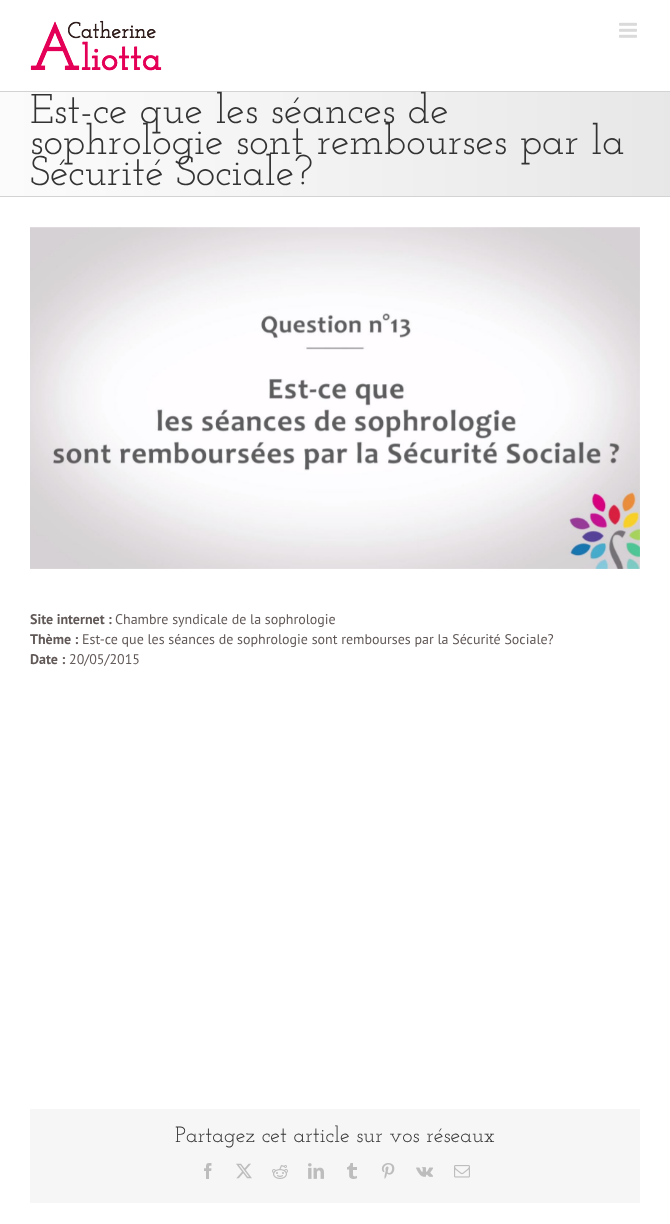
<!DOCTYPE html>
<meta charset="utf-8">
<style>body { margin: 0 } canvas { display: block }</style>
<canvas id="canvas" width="670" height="1224"></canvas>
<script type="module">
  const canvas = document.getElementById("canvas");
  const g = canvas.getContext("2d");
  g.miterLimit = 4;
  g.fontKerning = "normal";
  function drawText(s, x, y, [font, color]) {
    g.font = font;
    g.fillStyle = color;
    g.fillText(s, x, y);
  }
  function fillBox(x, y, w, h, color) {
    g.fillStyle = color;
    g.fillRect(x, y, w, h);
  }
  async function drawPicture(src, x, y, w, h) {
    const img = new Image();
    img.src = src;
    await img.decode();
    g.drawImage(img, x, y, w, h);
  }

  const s1 = ["100 41.6px Josefin Slab", "#333333"];
  const s2 = ["bold 14px PT Sans", "#615957"];
  const s3 = ["14px PT Sans", "#615957"];
  const s4 = ["100 22px Josefin Slab", "#333333"];

  fillBox(0, 0, 670, 1224, "#FFFFFF");
  await drawPicture("pic1.png", 30, 20, 132, 51);
  await drawPicture("pic2.png", 619, 22, 18, 16);
  await drawPicture("pic3.png", 0, 92, 670, 104);
  fillBox(0, 91, 670, 1, "#D2D3D4");
  fillBox(0, 196, 670, 1, "#D2D3D4");
  drawText("Est-ce que les séances de", 30, 123, s1);
  drawText("sophrologie sont rembourses par la", 30, 154, s1);
  drawText("Sécurité Sociale?", 30, 185, s1);
  await drawPicture("pic4.png", 30, 227, 610, 342);
  drawText("Site internet :", 30, 624, s2);
  drawText("Chambre syndicale de la sophrologie", 115, 624, s3);
  drawText("Thème :", 30, 644, s2);
  drawText("Est-ce que les séances de sophrologie sont rembourses par la Sécurité Sociale?", 82, 644, s3);
  drawText("Date :", 30, 664, s2);
  drawText("20/05/2015", 69, 664, s3);
  fillBox(30, 1109, 610, 94, "#F6F6F6");
  drawText("Partagez cet article sur vos réseaux", 175, 1142, s4);
  await drawPicture("pic5.png", 204, 1163, 8, 16);
  await drawPicture("pic6.png", 236, 1163, 16, 16);
  await drawPicture("pic7.png", 272, 1165, 16, 14);
  await drawPicture("pic8.png", 308, 1163, 16, 16);
  await drawPicture("pic9.png", 347, 1163, 10, 16);
  await drawPicture("pic10.png", 381, 1163, 14, 16);
  await drawPicture("pic11.png", 416, 1167, 17, 10);
  await drawPicture("pic12.png", 454, 1165, 16, 13);
</script>
